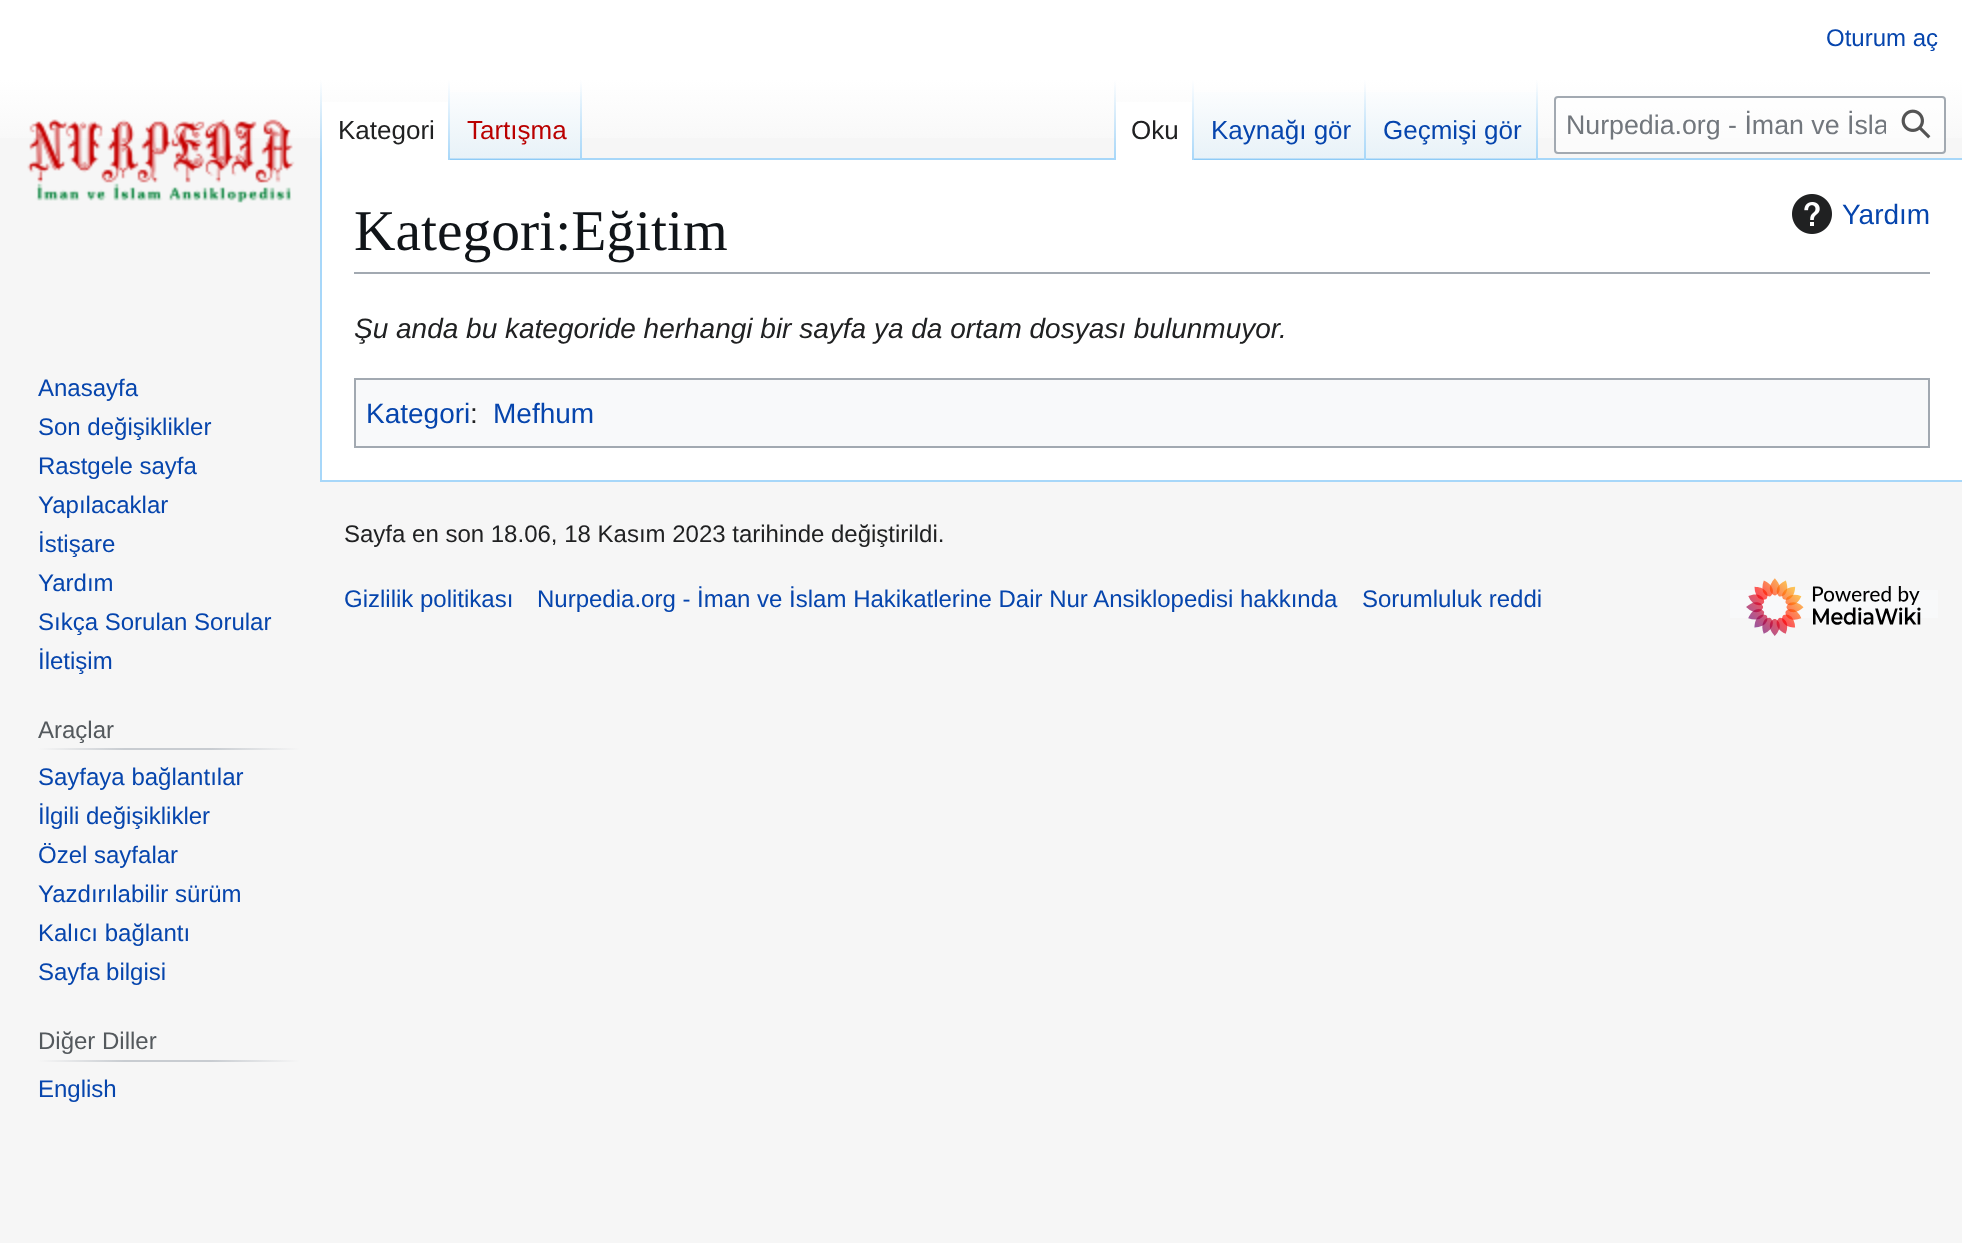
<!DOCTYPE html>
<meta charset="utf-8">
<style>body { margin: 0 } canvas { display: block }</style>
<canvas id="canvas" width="1962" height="1243"></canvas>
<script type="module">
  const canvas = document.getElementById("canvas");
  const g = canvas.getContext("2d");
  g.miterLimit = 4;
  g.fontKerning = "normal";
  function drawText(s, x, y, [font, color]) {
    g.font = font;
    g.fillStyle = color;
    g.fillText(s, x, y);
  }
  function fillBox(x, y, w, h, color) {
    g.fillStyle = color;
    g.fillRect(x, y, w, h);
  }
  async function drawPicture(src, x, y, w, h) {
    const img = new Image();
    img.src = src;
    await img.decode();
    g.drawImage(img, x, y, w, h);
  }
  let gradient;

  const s1 = ["24px Liberation Sans", "#0645AD"];
  const s2 = ["26px Liberation Sans", "#202122"];
  const s3 = ["26px Liberation Sans", "#BA0000"];
  const s4 = ["26px Liberation Sans", "#0645AD"];
  const s5 = ["26.75px Liberation Sans", "#72777D"];
  const s6 = ["24px Liberation Sans", "#54595D"];
  const s7 = ["57.5px Liberation Serif", "#101418"];
  const s8 = ["28px Liberation Sans", "#0645AD"];
  const s9 = ["italic 28px Liberation Sans", "#202122"];
  const s10 = ["28px Liberation Sans", "#202122"];
  const s11 = ["24px Liberation Sans", "#202122"];

  fillBox(0, 0, 1962, 1243, "#F6F6F6");
  gradient = g.createLinearGradient(981, 0, 981, 160);
  gradient.addColorStop(0.5, "#FFFFFF");
  gradient.addColorStop(1, "#F6F6F6");
  g.fillStyle = gradient;
  g.fillRect(0, 0, 1962, 138);
  drawText("Oturum aç", 1826, 46, s1);
  fillBox(320, 480, 1642, 2, "#A7D7F9");
  fillBox(320, 158, 2, 324, "#A7D7F9");
  gradient = g.createLinearGradient(321, 80, 321, 160);
  gradient.addColorStop(0, "rgba(167, 215, 249, 0)");
  gradient.addColorStop(1, "#A7D7F9");
  g.fillStyle = gradient;
  g.fillRect(320, 80, 2, 80);
  fillBox(322, 102, 126, 58, "#FFFFFF");
  gradient = g.createLinearGradient(449, 80, 449, 160);
  gradient.addColorStop(0, "#FFFFFF");
  gradient.addColorStop(1, "#A7D7F9");
  g.fillStyle = gradient;
  g.fillRect(448, 80, 2, 80);
  drawText("Kategori", 338, 139, s2);
  gradient = g.createLinearGradient(516, 160, 516, 80);
  gradient.addColorStop(0, "#77C1F6");
  gradient.addColorStop(0.03, "#E8F2F8");
  gradient.addColorStop(1, "#FFFFFF");
  g.fillStyle = gradient;
  g.fillRect(450, 92, 132, 68);
  gradient = g.createLinearGradient(581, 80, 581, 160);
  gradient.addColorStop(0, "rgba(167, 215, 249, 0)");
  gradient.addColorStop(1, "#A7D7F9");
  g.fillStyle = gradient;
  g.fillRect(580, 80, 2, 80);
  drawText("Tartışma", 467, 139, s3);
  fillBox(582, 158, 1380, 2, "#A7D7F9");
  gradient = g.createLinearGradient(1115, 80, 1115, 160);
  gradient.addColorStop(0, "rgba(167, 215, 249, 0)");
  gradient.addColorStop(1, "#A7D7F9");
  g.fillStyle = gradient;
  g.fillRect(1114, 80, 2, 80);
  fillBox(1116, 102, 76, 58, "#FFFFFF");
  gradient = g.createLinearGradient(1193, 80, 1193, 160);
  gradient.addColorStop(0, "#FFFFFF");
  gradient.addColorStop(1, "#A7D7F9");
  g.fillStyle = gradient;
  g.fillRect(1192, 80, 2, 80);
  drawText("Oku", 1131, 139, s2);
  gradient = g.createLinearGradient(1280, 160, 1280, 80);
  gradient.addColorStop(0, "#77C1F6");
  gradient.addColorStop(0.03, "#E8F2F8");
  gradient.addColorStop(1, "#FFFFFF");
  g.fillStyle = gradient;
  g.fillRect(1194, 92, 172, 68);
  gradient = g.createLinearGradient(1365, 80, 1365, 160);
  gradient.addColorStop(0, "rgba(167, 215, 249, 0)");
  gradient.addColorStop(1, "#A7D7F9");
  g.fillStyle = gradient;
  g.fillRect(1364, 80, 2, 80);
  drawText("Kaynağı gör", 1211, 139, s4);
  gradient = g.createLinearGradient(1452, 160, 1452, 80);
  gradient.addColorStop(0, "#77C1F6");
  gradient.addColorStop(0.03, "#E8F2F8");
  gradient.addColorStop(1, "#FFFFFF");
  g.fillStyle = gradient;
  g.fillRect(1366, 92, 172, 68);
  gradient = g.createLinearGradient(1537, 80, 1537, 160);
  gradient.addColorStop(0, "rgba(167, 215, 249, 0)");
  gradient.addColorStop(1, "#A7D7F9");
  g.fillStyle = gradient;
  g.fillRect(1536, 80, 2, 80);
  drawText("Geçmişi gör", 1383, 139, s4);
  g.fillStyle = "rgba(255, 255, 255, 0.5)";
  g.beginPath();
  g.roundRect(1555, 97, 390, 56, 3);
  g.fill();
  g.strokeStyle = "#A2A9B1";
  g.lineWidth = 2;
  g.stroke();
  g.save();
  g.beginPath();
  g.rect(1566, 110, 320, 30);
  g.clip();
  drawText("Nurpedia.org - İman ve İsla", 1566, 134, s5);
  g.restore();
  await drawPicture("pic1.png", 1901, 109, 30, 30);
  await drawPicture("pic2.png", 27, 119, 268, 84);
  drawText("Anasayfa", 38, 396, s1);
  drawText("Son değişiklikler", 38, 435, s1);
  drawText("Rastgele sayfa", 38, 474, s1);
  drawText("Yapılacaklar", 38, 513, s1);
  drawText("İstişare", 38, 552, s1);
  drawText("Yardım", 38, 591, s1);
  drawText("Sıkça Sorulan Sorular", 38, 630, s1);
  drawText("İletişim", 38, 669, s1);
  gradient = g.createLinearGradient(38, 749, 300, 749);
  gradient.addColorStop(0, "#F6F6F6");
  gradient.addColorStop(0.33, "#C8CCD1");
  gradient.addColorStop(0.66, "#C8CCD1");
  gradient.addColorStop(1, "#F6F6F6");
  g.fillStyle = gradient;
  g.fillRect(38, 748, 262, 2);
  drawText("Araçlar", 38, 738, s6);
  drawText("Sayfaya bağlantılar", 38, 785, s1);
  drawText("İlgili değişiklikler", 38, 824, s1);
  drawText("Özel sayfalar", 38, 863, s1);
  drawText("Yazdırılabilir sürüm", 38, 902, s1);
  drawText("Kalıcı bağlantı", 38, 941, s1);
  drawText("Sayfa bilgisi", 38, 980, s1);
  gradient = g.createLinearGradient(38, 1061, 300, 1061);
  gradient.addColorStop(0, "#F6F6F6");
  gradient.addColorStop(0.33, "#C8CCD1");
  gradient.addColorStop(0.66, "#C8CCD1");
  gradient.addColorStop(1, "#F6F6F6");
  g.fillStyle = gradient;
  g.fillRect(38, 1060, 262, 2);
  drawText("Diğer Diller", 38, 1049, s6);
  drawText("English", 38, 1097, s1);
  fillBox(322, 160, 1640, 320, "#FFFFFF");
  fillBox(354, 272, 1576, 2, "#A2A9B1");
  drawText("Kategori:Eğitim", 354, 250, s7);
  await drawPicture("pic3.png", 1792, 194, 40, 40);
  drawText("Yardım", 1842, 224, s8);
  drawText("Şu anda bu kategoride herhangi bir sayfa ya da ortam dosyası bulunmuyor.", 354, 338, s9);
  g.fillStyle = "#F8F9FA";
  g.beginPath();
  g.rect(355, 379, 1574, 68);
  g.fill();
  g.stroke();
  drawText("Kategori", 366, 423, s8);
  drawText(":", 470, 423, s10);
  drawText("Mefhum", 493, 423, s8);
  drawText("Sayfa en son 18.06, 18 Kasım 2023 tarihinde değiştirildi.", 344, 542, s11);
  drawText("Gizlilik politikası", 344, 607, s1);
  drawText("Nurpedia.org - İman ve İslam Hakikatlerine Dair Nur Ansiklopedisi hakkında", 537, 607, s1);
  drawText("Sorumluluk reddi", 1362, 607, s1);
  fillBox(1730, 590, 208, 28, "#F8F9FA");
  await drawPicture("pic4.png", 1746, 578, 175, 58);
</script>
